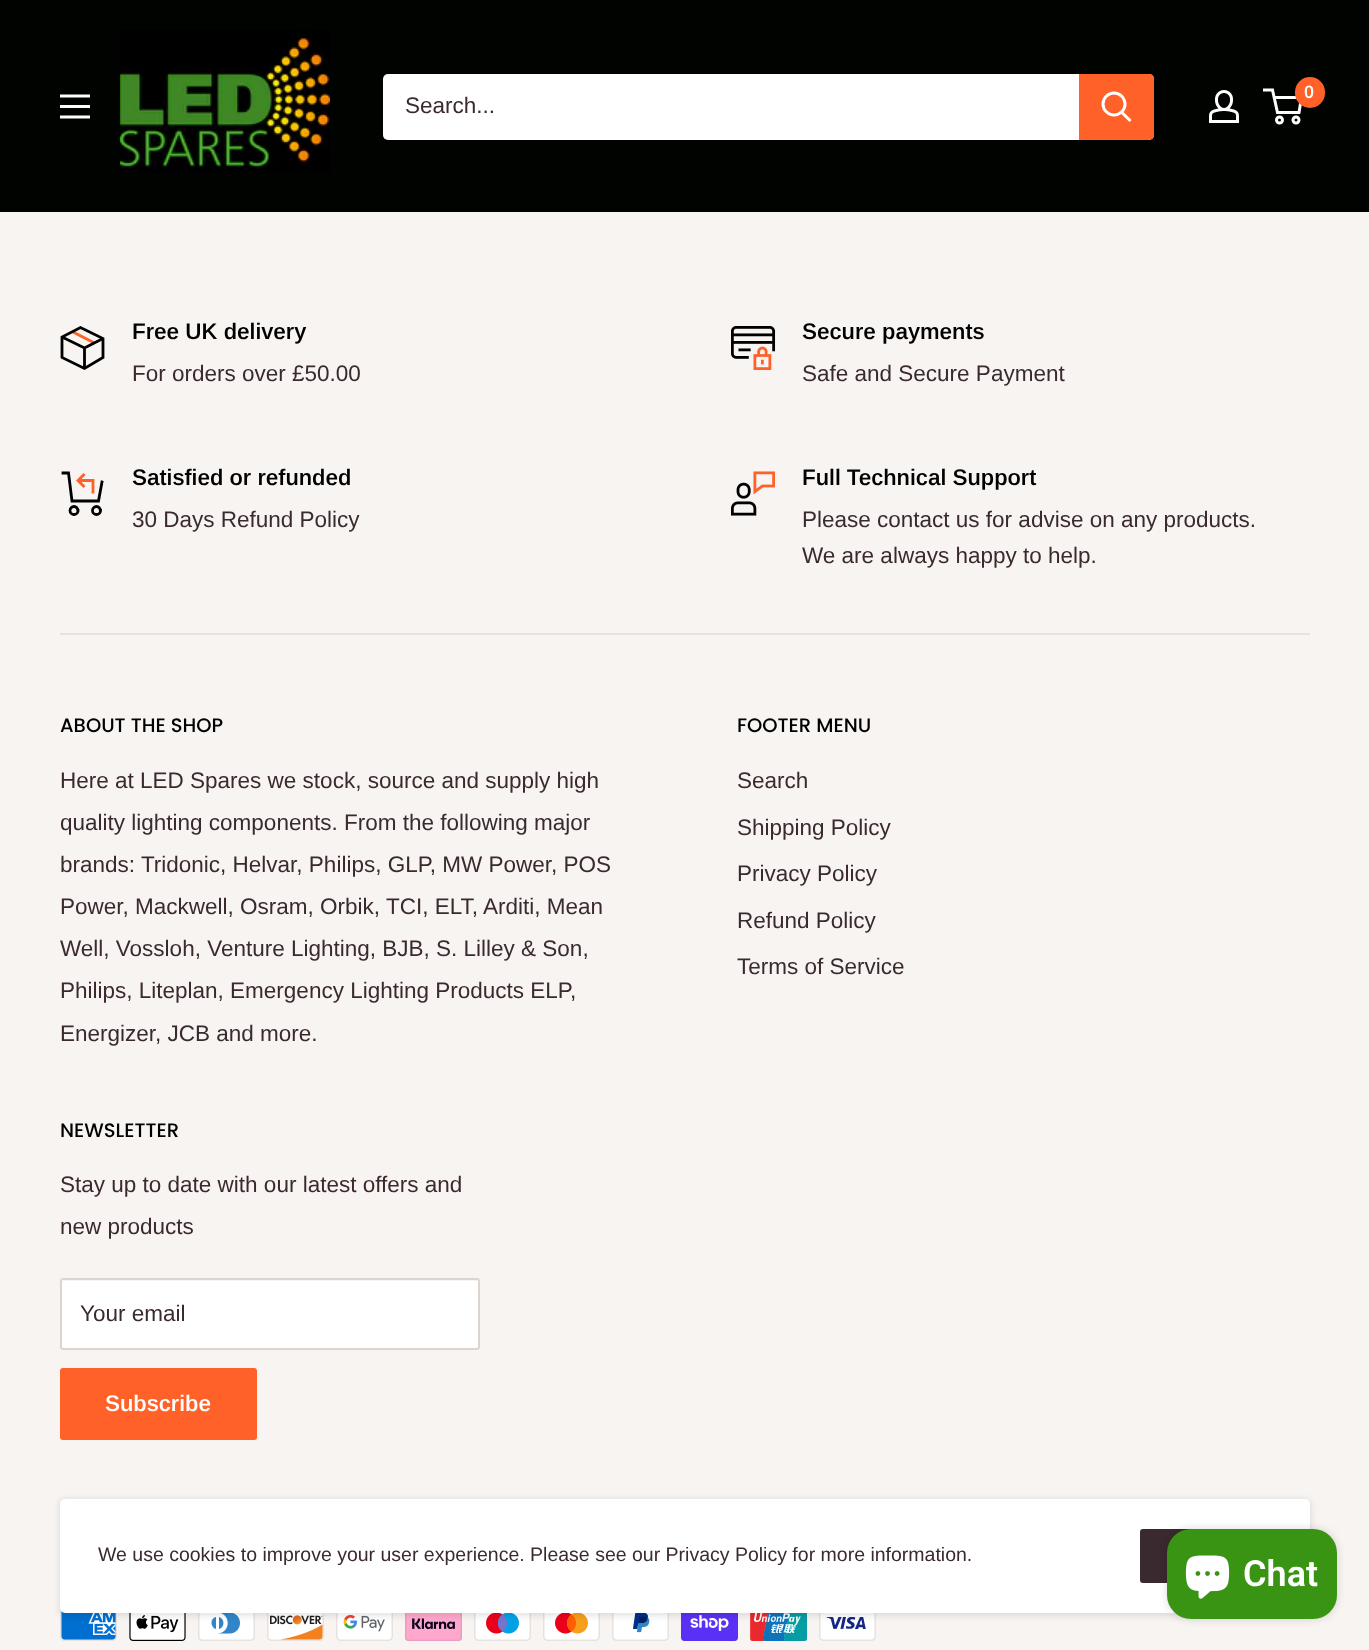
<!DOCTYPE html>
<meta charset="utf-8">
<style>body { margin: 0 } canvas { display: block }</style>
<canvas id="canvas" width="1369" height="1650"></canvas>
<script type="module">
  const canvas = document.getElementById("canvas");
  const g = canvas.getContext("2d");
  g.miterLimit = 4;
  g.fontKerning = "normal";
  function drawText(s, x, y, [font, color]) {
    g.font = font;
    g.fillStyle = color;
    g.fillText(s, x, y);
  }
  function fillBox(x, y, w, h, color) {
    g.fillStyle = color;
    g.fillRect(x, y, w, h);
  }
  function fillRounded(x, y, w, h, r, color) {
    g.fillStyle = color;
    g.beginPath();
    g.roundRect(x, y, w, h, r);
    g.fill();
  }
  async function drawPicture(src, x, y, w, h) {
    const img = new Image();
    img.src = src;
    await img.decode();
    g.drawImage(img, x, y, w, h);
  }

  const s1 = ["600 18px Arimo", "#FFFFFF"];
  const s2 = ["22.5px Arimo", "#3A2A2F"];
  const s3 = ["600 22.5px Arimo", "#000000"];
  const s4 = ["500 19.5px Poppins", "#000000"];
  const s5 = ["600 22.5px Arimo", "#FFFFFF"];
  const s6 = ["19.5px Arimo", "#3A2A2F"];
  const s7 = ["600 36px Roboto", "#FFFFFF"];

  fillBox(0, 0, 1369, 1650, "#F7F4F2");
  fillBox(0, 0, 1369, 212, "#000300");
  await drawPicture("pic1.png", 120, 30, 210, 143);
  await drawPicture("pic2.png", 1209, 90, 30, 33);
  g.beginPath();
  g.arc(1279.5, 120, 3, 0, Math.PI * 2);
  g.strokeStyle = "#FFFFFF";
  g.lineWidth = 3;
  g.stroke();
  g.beginPath();
  g.arc(1296, 120, 3, 0, Math.PI * 2);
  g.stroke();
  g.beginPath();
  g.moveTo(1274, 97.5);
  g.lineTo(1301.5, 97.5);
  g.lineTo(1299, 112.5);
  g.lineTo(1277.5, 112.5);
  g.lineTo(1272.5, 90);
  g.lineTo(1263, 90);
  g.stroke();
  fillRounded(1295, 77, 30, 31, 15, "#FF6128");
  drawText("0", 1304, 98, s1);
  await drawPicture("pic3.png", 60, 94, 30, 25);
  fillRounded(383, 74, 771, 66, 5, "#FFFFFF");
  drawText("Search...", 405, 113, s2);
  g.fillStyle = "#FF6128";
  g.beginPath();
  g.roundRect(1079, 74, 75, 66, [0, 5, 5, 0]);
  g.fill();
  g.beginPath();
  g.moveTo(1129.5, 120);
  g.lineTo(1122, 112.5);
  g.lineCap = "square";
  g.stroke();
  g.beginPath();
  g.arc(1114, 104, 11, 0, Math.PI * 2);
  g.stroke();
  g.beginPath();
  g.moveTo(72, 331.5);
  g.lineTo(94.5, 343);
  g.strokeStyle = "#FF6128";
  g.lineWidth = 2.8;
  g.lineCap = "butt";
  g.stroke();
  g.beginPath();
  g.moveTo(103, 338.5);
  g.lineTo(84.5, 348);
  g.lineTo(62, 337);
  g.moveTo(84.5, 348);
  g.lineTo(84.5, 368.5);
  g.strokeStyle = "#000000";
  g.stroke();
  g.beginPath();
  g.moveTo(103, 338.5);
  g.lineTo(103, 357.5);
  g.lineTo(84.5, 368.5);
  g.lineTo(62, 357.5);
  g.lineTo(62, 337);
  g.lineTo(80.5, 327.5);
  g.closePath();
  g.lineCap = "square";
  g.stroke();
  drawText("Free UK delivery", 132, 339, s3);
  drawText("For orders over £50.00", 132, 381, s2);
  await drawPicture("pic4.png", 731, 326, 45, 44);
  drawText("Secure payments", 802, 339, s3);
  drawText("Safe and Secure Payment", 802, 381, s2);
  g.beginPath();
  g.moveTo(78, 480.5);
  g.lineTo(93, 480.5);
  g.lineTo(93, 493.5);
  g.strokeStyle = "#FF6128";
  g.lineCap = "butt";
  g.stroke();
  g.beginPath();
  g.moveTo(83.5, 486);
  g.lineTo(78, 480.5);
  g.lineTo(83.5, 475);
  g.lineCap = "square";
  g.stroke();
  g.beginPath();
  g.moveTo(102, 482);
  g.lineTo(98.5, 501);
  g.lineTo(72, 501);
  g.lineTo(68.5, 473);
  g.lineTo(63, 473);
  g.strokeStyle = "#000000";
  g.stroke();
  g.beginPath();
  g.arc(74, 510.5, 4, 0, Math.PI * 2);
  g.stroke();
  g.beginPath();
  g.arc(96.5, 510.5, 4, 0, Math.PI * 2);
  g.stroke();
  drawText("Satisfied or refunded", 132, 485, s3);
  drawText("30 Days Refund Policy", 132, 527, s2);
  await drawPicture("pic5.png", 731, 471, 45, 45);
  drawText("Full Technical Support", 802, 485, s3);
  drawText("Please contact us for advise on any products.", 802, 527, s2);
  drawText("We are always happy to help.", 802, 563, s2);
  fillBox(60, 633, 1250, 2, "#E7E2DE");
  drawText("ABOUT THE SHOP", 60, 732, s4);
  drawText("Here at LED Spares we stock, source and supply high", 60, 788, s2);
  drawText("quality lighting components. From the following major", 60, 830, s2);
  drawText("brands: Tridonic, Helvar, Philips, GLP, MW Power, POS", 60, 872, s2);
  drawText("Power, Mackwell, Osram, Orbik, TCI, ELT, Arditi, Mean", 60, 914, s2);
  drawText("Well, Vossloh, Venture Lighting, BJB, S. Lilley & Son,", 60, 956, s2);
  drawText("Philips, Liteplan, Emergency Lighting Products ELP,", 60, 998, s2);
  drawText("Energizer, JCB and more.", 60, 1041, s2);
  drawText("FOOTER MENU", 737, 732, s4);
  drawText("Search", 737, 788, s2);
  drawText("Shipping Policy", 737, 835, s2);
  drawText("Privacy Policy", 737, 881, s2);
  drawText("Refund Policy", 737, 928, s2);
  drawText("Terms of Service", 737, 974, s2);
  drawText("NEWSLETTER", 60, 1137, s4);
  drawText("Stay up to date with our latest offers and", 60, 1192, s2);
  drawText("new products", 60, 1234, s2);
  fillRounded(60, 1278, 420, 72, 3, "#FFFFFF");
  g.fillStyle = "#F6F5F3";
  g.beginPath();
  g.moveTo(63, 1281);
  g.lineTo(477, 1281);
  g.bezierCurveTo(478, 1281, 478, 1282, 478, 1282);
  g.lineTo(478, 1349);
  g.bezierCurveTo(479, 1349, 479, 1348, 479, 1348);
  g.lineTo(479, 1282);
  g.bezierCurveTo(479, 1281, 478, 1280, 478, 1280);
  g.lineTo(64, 1280);
  g.bezierCurveTo(63, 1280, 62, 1281, 62, 1282);
  g.closePath();
  g.fill();
  g.beginPath();
  g.roundRect(61, 1279, 418, 70, 2);
  g.strokeStyle = "#DCD5CF";
  g.lineWidth = 2;
  g.stroke();
  drawText("Your email", 80, 1321, s2);
  fillRounded(60, 1368, 197, 72, 3, "#FF6128");
  drawText("Subscribe", 105, 1411, s5);
  await drawPicture("pic6.png", 60, 1608, 57, 33);
  await drawPicture("pic7.png", 129, 1613, 57, 28);
  await drawPicture("pic8.png", 198, 1613, 57, 28);
  await drawPicture("pic9.png", 267, 1613, 57, 28);
  await drawPicture("pic10.png", 336, 1613, 57, 28);
  await drawPicture("pic11.png", 405, 1613, 57, 28);
  await drawPicture("pic12.png", 474, 1613, 57, 28);
  await drawPicture("pic13.png", 543, 1613, 57, 28);
  await drawPicture("pic14.png", 612, 1613, 57, 28);
  await drawPicture("pic15.png", 681, 1613, 57, 28);
  await drawPicture("pic16.png", 750, 1613, 57, 28);
  await drawPicture("pic17.png", 819, 1613, 57, 28);
  g.fillStyle = "rgba(0, 0, 0, 0.1)";
  g.filter = "blur(3px)";
  g.beginPath();
  g.roundRect(59, 1499, 1252, 117, 6);
  g.fill();
  g.filter = "none";
  fillRounded(60, 1499, 1250, 114, 5, "#FFFFFF");
  drawText("We use cookies to improve your user experience. Please see our Privacy Policy for more information.", 98, 1561, s6);
  fillRounded(1140, 1529, 125, 54, 3, "#3A2A2F");
  g.fillStyle = "rgba(0, 0, 0, 0.15)";
  g.filter = "blur(4px)";
  g.beginPath();
  g.roundRect(1167, 1529, 170, 90, 24);
  g.fill();
  g.filter = "none";
  fillRounded(1167, 1529, 170, 90, 24, "#3A9414");
  await drawPicture("pic18.png", 1185, 1555, 45, 44);
  drawText("Chat", 1243, 1586, s7);
</script>
